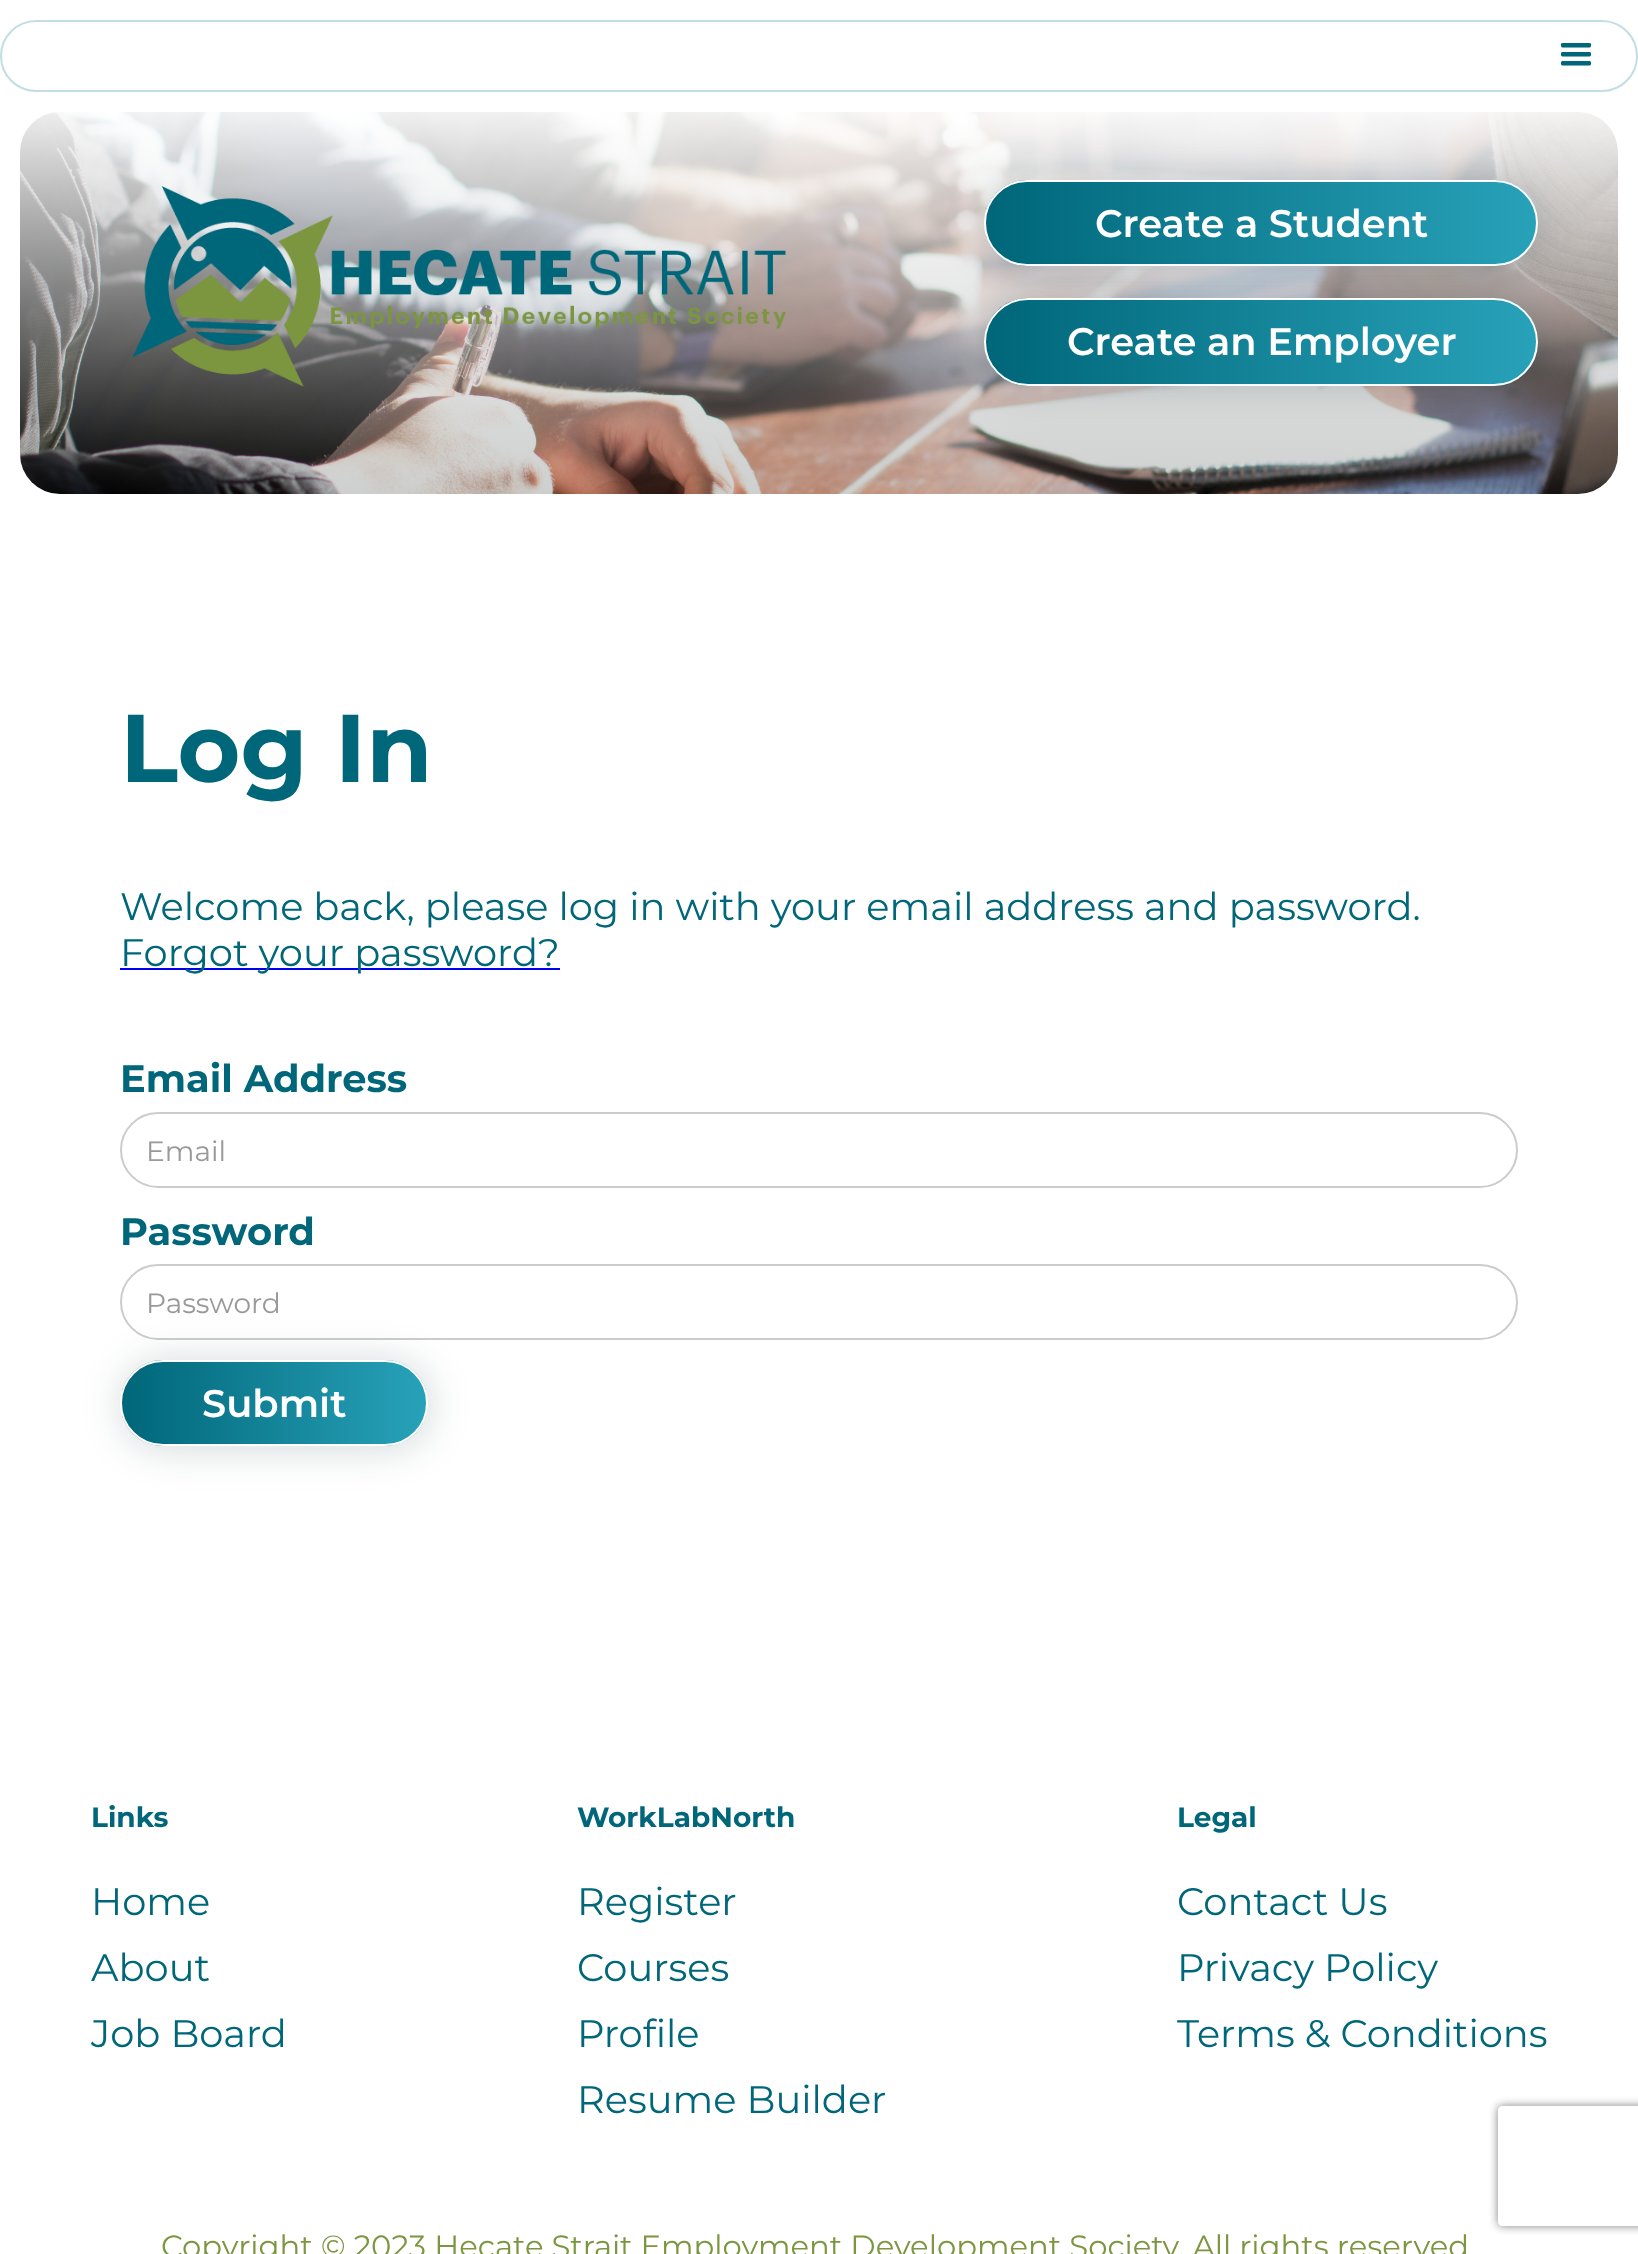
<!DOCTYPE html>
<meta charset="utf-8">
<style>body { margin: 0 } canvas { display: block }</style>
<canvas id="canvas" width="1638" height="2254"></canvas>
<script type="module">
  const canvas = document.getElementById("canvas");
  const g = canvas.getContext("2d");
  g.miterLimit = 4;
  g.fontKerning = "normal";
  function drawText(s, x, y, [font, color]) {
    g.font = font;
    g.fillStyle = color;
    g.fillText(s, x, y);
  }
  function fillBox(x, y, w, h, color) {
    g.fillStyle = color;
    g.fillRect(x, y, w, h);
  }
  async function drawPicture(src, x, y, w, h) {
    const img = new Image();
    img.src = src;
    await img.decode();
    g.drawImage(img, x, y, w, h);
  }
  let gradient;

  const s1 = ["600 38.4px Montserrat", "#FFFFFF"];
  const s2 = ["bold 96px Montserrat", "#006679"];
  const s3 = ["38.4px Montserrat", "#006679"];
  const s4 = ["bold 38.4px Montserrat", "#006679"];
  const s5 = ["28px Montserrat", "#999999"];
  const s6 = ["bold 28px Montserrat", "#006679"];
  const s7 = ["30.7px Montserrat", "#7C9640"];

  fillBox(0, 0, 1638, 2254, "#FFFFFF");
  g.beginPath();
  g.roundRect(1, 21, 1636, 70, 35);
  g.strokeStyle = "#C1DEE4";
  g.lineWidth = 2;
  g.stroke();
  await drawPicture("pic1.png", 1561, 43, 30, 23);
  await drawPicture("pic2.png", 20, 112, 1598, 382);
  await drawPicture("pic3.png", 132, 186, 654, 201);
  g.fillStyle = "rgba(0, 39, 46, 0.18)";
  g.filter = "blur(20px)";
  g.beginPath();
  g.roundRect(986, 182, 554, 86, 43);
  g.fill();
  g.filter = "none";
  g.save();
  g.beginPath();
  g.roundRect(984, 180, 554, 86, 43);
  g.clip();
  gradient = g.createLinearGradient(986, 223, 1536, 223);
  gradient.addColorStop(0, "#006679");
  gradient.addColorStop(1, "#28A2B9");
  g.fillStyle = gradient;
  g.fillRect(986, 180, 550, 86);
  g.restore();
  g.beginPath();
  g.roundRect(985, 181, 552, 84, 42);
  g.strokeStyle = "#FFFFFF";
  g.stroke();
  drawText("Create a Student", 1095, 237, s1);
  g.fillStyle = "rgba(0, 39, 46, 0.18)";
  g.filter = "blur(20px)";
  g.beginPath();
  g.roundRect(986, 300, 554, 88, 44);
  g.fill();
  g.filter = "none";
  g.save();
  g.beginPath();
  g.roundRect(984, 298, 554, 88, 44);
  g.clip();
  gradient = g.createLinearGradient(986, 342, 1536, 342);
  gradient.addColorStop(0, "#006679");
  gradient.addColorStop(1, "#28A2B9");
  g.fillStyle = gradient;
  g.fillRect(986, 298, 550, 88);
  g.restore();
  g.beginPath();
  g.roundRect(985, 299, 552, 86, 43);
  g.stroke();
  drawText("Create an Employer", 1067, 355, s1);
  drawText("Log In", 120, 782, s2);
  drawText("Welcome back, please log in with your email address and password.", 120, 920, s3);
  fillBox(120, 968, 440, 2, "#0000EE");
  drawText("Forgot your password?", 120, 966, s3);
  drawText("Email Address", 120, 1092, s4);
  g.beginPath();
  g.roundRect(121, 1113, 1396, 74, 37);
  g.strokeStyle = "#CCCCCC";
  g.stroke();
  drawText("Email", 146, 1161, s5);
  drawText("Password", 120, 1245, s4);
  g.beginPath();
  g.roundRect(121, 1265, 1396, 74, 37);
  g.stroke();
  drawText("Password", 146, 1313, s5);
  g.fillStyle = "rgba(0, 39, 46, 0.18)";
  g.filter = "blur(20px)";
  g.beginPath();
  g.roundRect(122, 1362, 308, 86, 43);
  g.fill();
  g.filter = "none";
  g.save();
  g.beginPath();
  g.roundRect(120, 1360, 308, 86, 43);
  g.clip();
  gradient = g.createLinearGradient(122, 1403, 426, 1403);
  gradient.addColorStop(0, "#006679");
  gradient.addColorStop(1, "#28A2B9");
  g.fillStyle = gradient;
  g.fillRect(122, 1360, 304, 86);
  g.restore();
  g.beginPath();
  g.roundRect(121, 1361, 306, 84, 42);
  g.strokeStyle = "#FFFFFF";
  g.stroke();
  drawText("Submit", 202, 1417, s1);
  g.save();
  g.beginPath();
  g.moveTo(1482, 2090);
  g.lineTo(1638, 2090);
  g.lineTo(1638, 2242);
  g.lineTo(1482, 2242);
  g.closePath();
  g.moveTo(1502, 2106);
  g.lineTo(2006, 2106);
  g.bezierCurveTo(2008, 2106, 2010, 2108, 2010, 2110);
  g.lineTo(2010, 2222);
  g.bezierCurveTo(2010, 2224, 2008, 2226, 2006, 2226);
  g.lineTo(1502, 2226);
  g.bezierCurveTo(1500, 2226, 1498, 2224, 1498, 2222);
  g.lineTo(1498, 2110);
  g.bezierCurveTo(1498, 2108, 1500, 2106, 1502, 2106);
  g.closePath();
  g.clip("evenodd");
  g.fillStyle = "#808080";
  g.filter = "blur(5px)";
  g.beginPath();
  g.roundRect(1498, 2106, 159, 120, 4);
  g.fill();
  g.filter = "none";
  g.restore();
  drawText("Links", 91, 1827, s6);
  drawText("Home", 91, 1915, s3);
  drawText("About", 91, 1981, s3);
  drawText("Job Board", 91, 2047, s3);
  drawText("WorkLabNorth", 577, 1827, s6);
  drawText("Register", 577, 1915, s3);
  drawText("Courses", 577, 1981, s3);
  drawText("Profile", 577, 2047, s3);
  drawText("Resume Builder", 577, 2113, s3);
  drawText("Legal", 1177, 1827, s6);
  drawText("Contact Us", 1177, 1915, s3);
  drawText("Privacy Policy", 1177, 1981, s3);
  drawText("Terms & Conditions", 1177, 2047, s3);
  drawText("Copyright © 2023 Hecate Strait Employment Development Society. All rights reserved", 161, 2257, s7);
</script>
